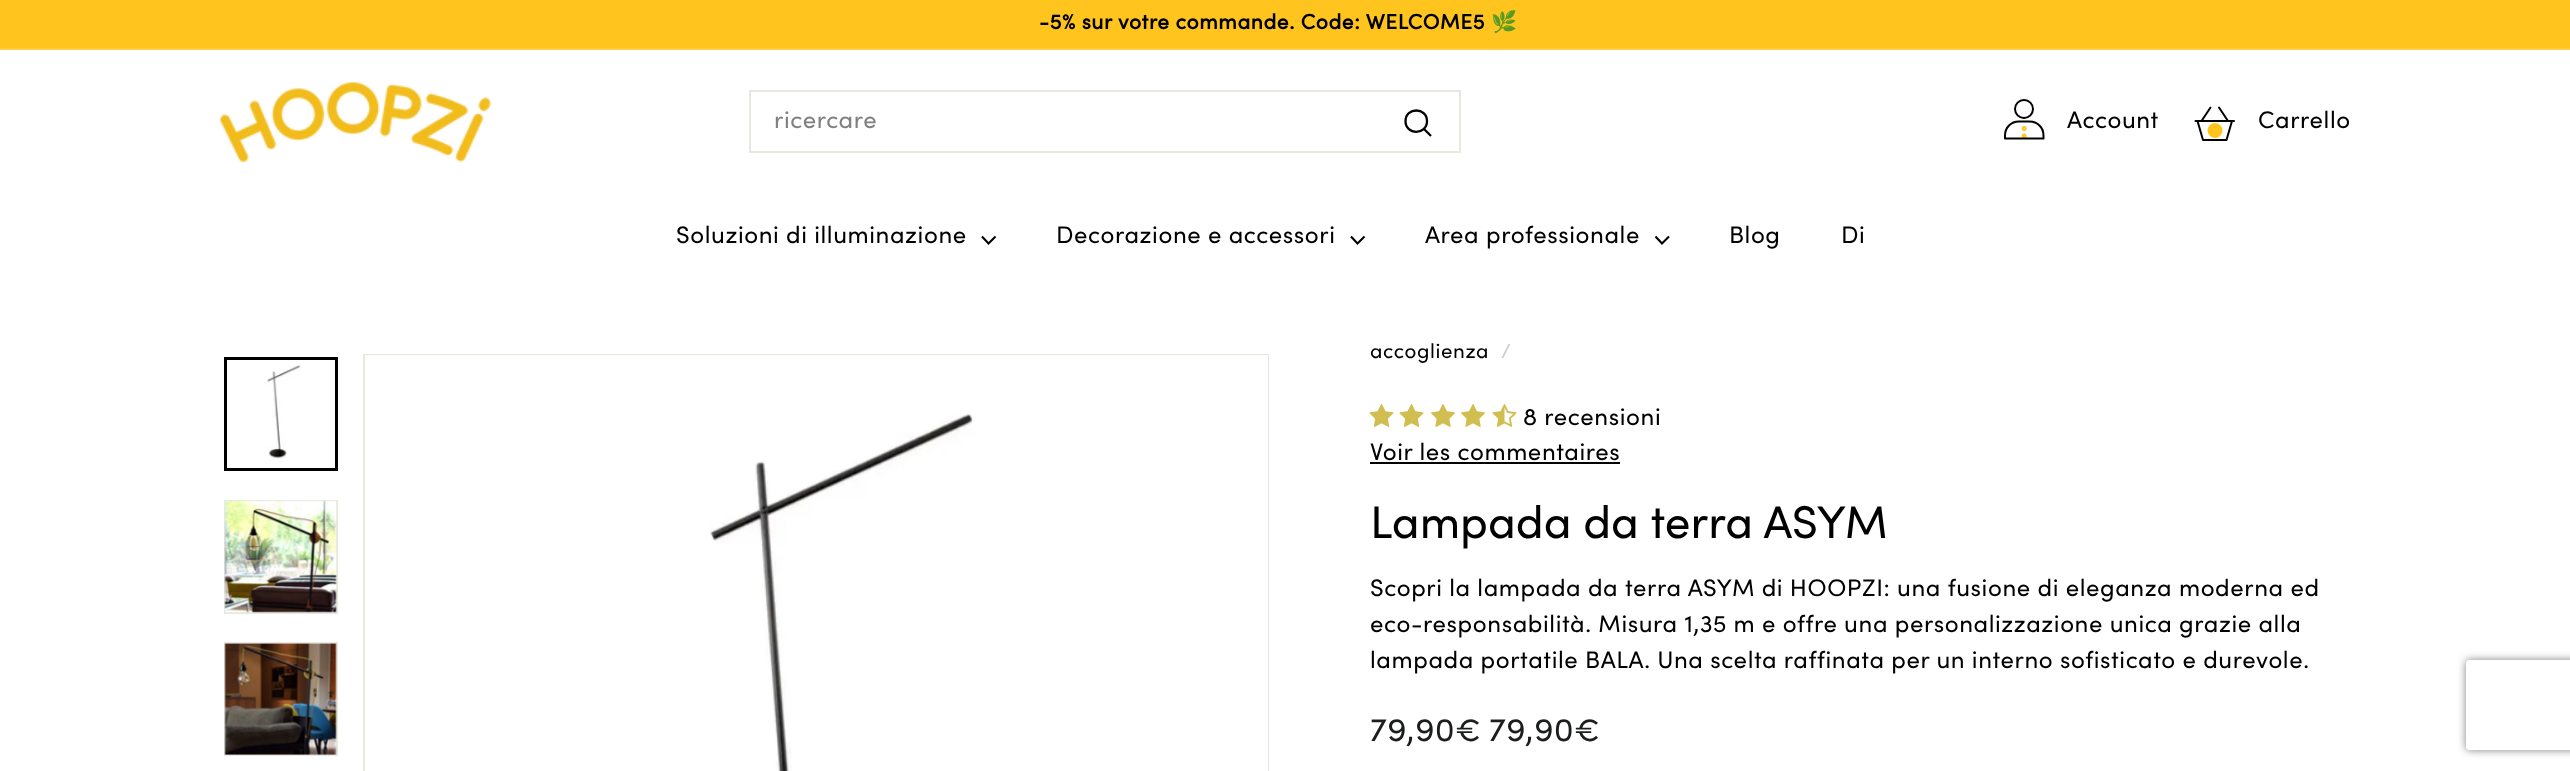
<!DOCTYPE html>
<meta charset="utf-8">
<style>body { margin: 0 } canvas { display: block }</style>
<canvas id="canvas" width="2570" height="771"></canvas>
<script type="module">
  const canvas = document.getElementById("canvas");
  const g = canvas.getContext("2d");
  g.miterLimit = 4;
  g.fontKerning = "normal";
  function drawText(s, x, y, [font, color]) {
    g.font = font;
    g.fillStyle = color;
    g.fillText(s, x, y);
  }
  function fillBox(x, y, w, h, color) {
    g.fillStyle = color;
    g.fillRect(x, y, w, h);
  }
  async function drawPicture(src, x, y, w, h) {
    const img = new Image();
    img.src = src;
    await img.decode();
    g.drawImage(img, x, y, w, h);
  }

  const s1 = ["bold 21px Sofia", "#000000"];
  const s2 = ["bold 21px Noto Color Emoji", "#000000"];
  const s3 = ["24px Sofia", "#808080"];
  const s4 = ["24px Sofia", "#000000"];
  const s5 = ["20.5px Sofia", "#000000"];
  const s6 = ["20.5px Sofia", "#CCCCCC"];
  const s7 = ["45.9px Sofia", "#000000"];
  const s8 = ["33px Sofia", "#1C1D1D"];

  fillBox(0, 0, 2570, 771, "#FFFFFF");
  fillBox(0, 0, 2570, 48, "#FFC41D");
  g.letterSpacing = "0.6px";
  drawText("-5% sur votre commande. Code: WELCOME5", 1039, 29, s1);
  drawText("🌿", 1491, 29, s2);
  fillBox(0, 48, 2570, 2, "#FFCD3F");
  await drawPicture("pic1.png", 220, 81, 271, 82);
  g.strokeStyle = "#E8E8E1";
  g.lineWidth = 2;
  g.strokeRect(750, 91, 710, 61);
  drawText("ricercare", 774, 128, s3);
  g.beginPath();
  g.moveTo(1427, 121);
  g.bezierCurveTo(1427, 135.5, 1405.5, 135.5, 1405.5, 121);
  g.bezierCurveTo(1405.5, 107, 1427, 107, 1427, 121);
  g.closePath();
  g.moveTo(1431, 136);
  g.lineTo(1424, 129);
  g.strokeStyle = "#000000";
  g.lineWidth = 2.3;
  g.stroke();
  g.beginPath();
  g.arc(2024.2, 128.4, 1.5, 0, Math.PI * 2);
  g.strokeStyle = "#FFC41D";
  g.lineWidth = 2;
  g.stroke();
  g.beginPath();
  g.arc(2024.2, 136, 1.5, 0, Math.PI * 2);
  g.stroke();
  g.beginPath();
  g.arc(2024, 109, 9, 0, Math.PI * 2);
  g.strokeStyle = "#000000";
  g.stroke();
  g.beginPath();
  g.moveTo(2043.5, 135.5);
  g.bezierCurveTo(2043.5, 127.5, 2037.5, 121.5, 2029.5, 121.5);
  g.lineTo(2019, 121.5);
  g.bezierCurveTo(2011, 121.5, 2005, 127.5, 2005, 135.5);
  g.lineTo(2005, 138.5);
  g.lineTo(2043.5, 138.5);
  g.closePath();
  g.lineJoin = "round";
  g.stroke();
  drawText("Account", 2067, 128, s4);
  g.beginPath();
  g.moveTo(2195.5, 121);
  g.lineTo(2234, 121);
  g.lineCap = "round";
  g.lineJoin = "miter";
  g.stroke();
  g.beginPath();
  g.moveTo(2226.5, 140);
  g.lineTo(2203, 140);
  g.lineTo(2197.5, 121);
  g.lineTo(2232, 121);
  g.closePath();
  g.moveTo(2201.5, 121);
  g.lineTo(2210.5, 107.5);
  g.moveTo(2228, 121);
  g.lineTo(2219, 107.5);
  g.lineJoin = "round";
  g.stroke();
  g.fillStyle = "#FFC41D";
  g.beginPath();
  g.arc(2215, 130.5, 7.5, 0, Math.PI * 2);
  g.fill();
  drawText("Carrello", 2258, 128, s4);
  drawText("Soluzioni di illuminazione", 676, 243, s4);
  g.beginPath();
  g.moveTo(982, 236.5);
  g.lineTo(988.5, 243.5);
  g.lineTo(995.5, 236.5);
  g.lineWidth = 2.1;
  g.lineCap = "butt";
  g.lineJoin = "miter";
  g.stroke();
  drawText("Decorazione e accessori", 1056, 243, s4);
  g.beginPath();
  g.moveTo(1351, 236.5);
  g.lineTo(1357.5, 243.5);
  g.lineTo(1364.5, 236.5);
  g.stroke();
  drawText("Area professionale", 1425, 243, s4);
  g.beginPath();
  g.moveTo(1655.5, 236.5);
  g.lineTo(1662, 243.5);
  g.lineTo(1669, 236.5);
  g.stroke();
  drawText("Blog", 1729, 243, s4);
  drawText("Di", 1841, 243, s4);
  await drawPicture("pic2.png", 227, 360, 108, 108);
  g.lineWidth = 3;
  g.strokeRect(225.5, 358.5, 111, 111);
  g.strokeStyle = "#E8E8E1";
  g.lineWidth = 2;
  g.strokeRect(225, 501, 112, 112);
  await drawPicture("pic3.png", 224, 500, 113, 113);
  g.strokeRect(225, 643, 112, 112);
  await drawPicture("pic4.png", 224, 643, 113, 112);
  g.strokeRect(364, 355, 904, 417);
  await drawPicture("pic5.png", 365, 355, 903, 416);
  drawText("accoglienza", 1370, 358, s5);
  drawText("/", 1501, 358, s6);
  await drawPicture("pic6.png", 1369, 404, 25, 23);
  await drawPicture("pic6.png", 1399, 404, 25, 23);
  await drawPicture("pic7.png", 1431, 404, 24, 23);
  await drawPicture("pic7.png", 1461, 404, 24, 23);
  await drawPicture("pic8.png", 1492, 404, 25, 23);
  drawText("8 recensioni", 1523, 425, s4);
  drawText("Voir les commentaires", 1370, 460, s4);
  fillBox(1370, 462, 250, 2, "#000000");
  g.letterSpacing = "0px";
  drawText("Lampada da terra ASYM", 1370, 538, s7);
  g.letterSpacing = "0.6px";
  drawText("Scopri la lampada da terra ASYM di HOOPZI: una fusione di eleganza moderna ed", 1370, 596, s4);
  drawText("eco-responsabilità. Misura 1,35 m e offre una personalizzazione unica grazie alla", 1370, 632, s4);
  drawText("lampada portatile BALA. Una scelta raffinata per un interno sofisticato e durevole.", 1370, 668, s4);
  drawText("79,90€", 1370, 741, s8);
  drawText("79,90€", 1489, 741, s8);
  g.save();
  g.beginPath();
  g.moveTo(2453, 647);
  g.lineTo(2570, 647);
  g.lineTo(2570, 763);
  g.lineTo(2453, 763);
  g.closePath();
  g.moveTo(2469, 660);
  g.lineTo(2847, 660);
  g.bezierCurveTo(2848.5, 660, 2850, 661.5, 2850, 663);
  g.lineTo(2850, 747);
  g.bezierCurveTo(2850, 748.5, 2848.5, 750, 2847, 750);
  g.lineTo(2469, 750);
  g.bezierCurveTo(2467.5, 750, 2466, 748.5, 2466, 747);
  g.lineTo(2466, 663);
  g.bezierCurveTo(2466, 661.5, 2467.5, 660, 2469, 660);
  g.closePath();
  g.clip("evenodd");
  g.fillStyle = "#808080";
  g.filter = "blur(4px)";
  g.beginPath();
  g.roundRect(2466, 660, 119, 90, 3);
  g.fill();
  g.filter = "none";
  g.restore();
</script>
